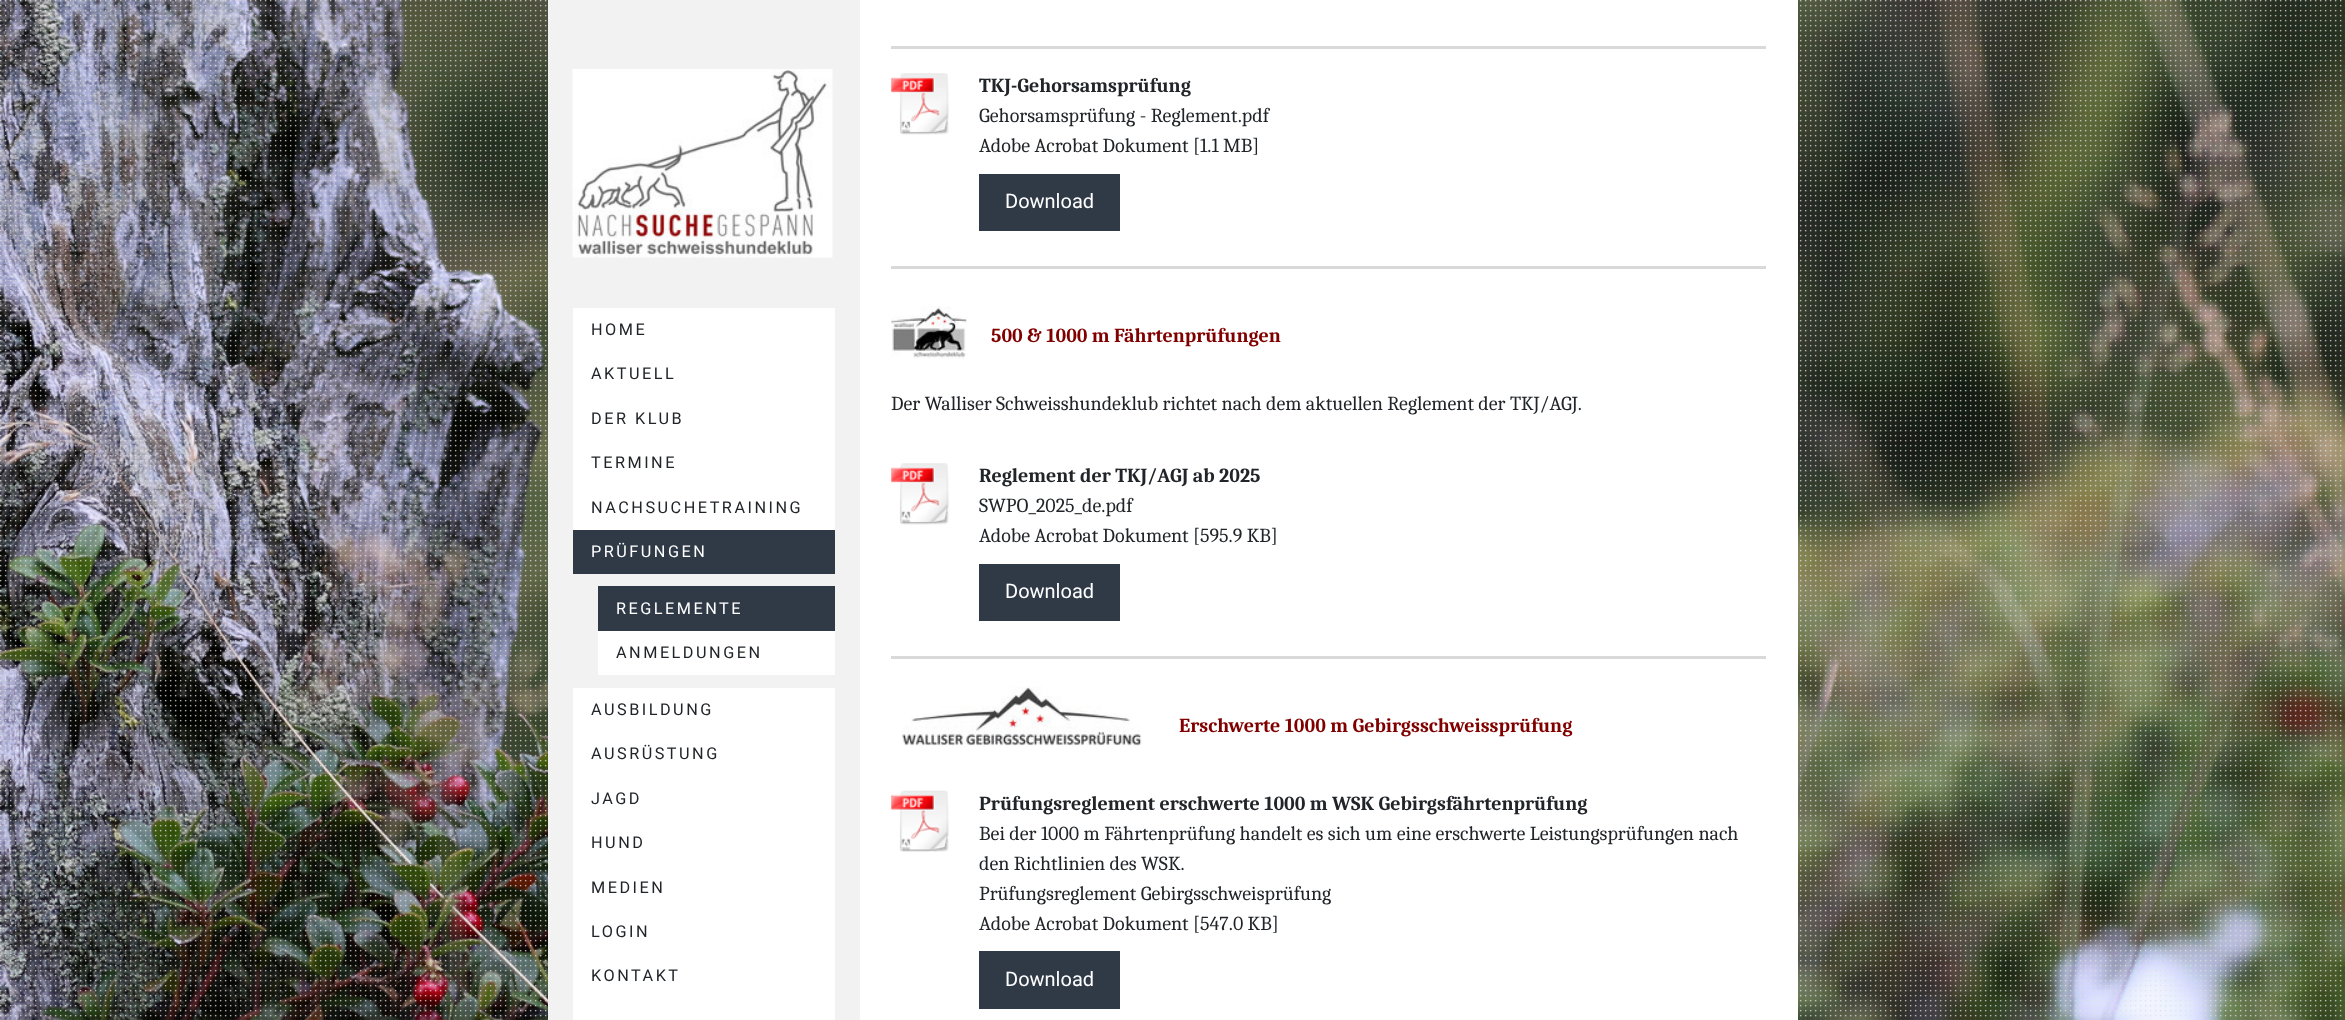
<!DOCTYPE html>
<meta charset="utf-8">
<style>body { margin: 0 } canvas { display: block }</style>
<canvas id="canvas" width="2345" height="1020"></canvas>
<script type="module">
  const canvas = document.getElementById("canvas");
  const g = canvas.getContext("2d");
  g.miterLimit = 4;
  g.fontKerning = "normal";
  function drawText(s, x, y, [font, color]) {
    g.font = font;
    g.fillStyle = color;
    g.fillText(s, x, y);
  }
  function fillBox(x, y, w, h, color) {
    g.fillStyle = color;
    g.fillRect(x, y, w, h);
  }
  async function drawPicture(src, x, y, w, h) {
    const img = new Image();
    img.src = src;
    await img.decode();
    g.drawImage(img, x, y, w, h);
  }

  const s1 = ["16.25px Roboto", "#212529"];
  const s2 = ["16.25px Roboto", "#FFFFFF"];
  const s3 = ["bold 20px Caladea", "#212529"];
  const s4 = ["20px Caladea", "#212529"];
  const s5 = ["20px Roboto", "#FFFFFF"];
  const s6 = ["bold 20px Caladea", "#800000"];

  fillBox(0, 0, 2345, 1020, "#FFFFFF");
  await drawPicture("pic1.png", 0, 0, 2345, 1020);
  await drawPicture("pic2.png", 0, 0, 2345, 1020);
  fillBox(548, 0, 312, 1020, "#F2F2F2");
  await drawPicture("pic3.png", 572, 69, 261, 189);
  fillBox(573, 308, 262, 222, "#FFFFFF");
  g.letterSpacing = "2.5px";
  drawText("HOME", 591, 335, s1);
  drawText("AKTUELL", 591, 379, s1);
  drawText("DER KLUB", 591, 424, s1);
  drawText("TERMINE", 591, 468, s1);
  drawText("NACHSUCHETRAINING", 591, 513, s1);
  fillBox(573, 530, 262, 44, "#303A47");
  drawText("PRÜFUNGEN", 591, 557, s2);
  fillBox(598, 586, 237, 45, "#303A47");
  drawText("REGLEMENTE", 616, 614, s2);
  fillBox(598, 631, 237, 44, "#FFFFFF");
  drawText("ANMELDUNGEN", 616, 658, s1);
  fillBox(573, 688, 262, 332, "#FFFFFF");
  drawText("AUSBILDUNG", 591, 715, s1);
  drawText("AUSRÜSTUNG", 591, 759, s1);
  drawText("JAGD", 591, 804, s1);
  drawText("HUND", 591, 848, s1);
  drawText("MEDIEN", 591, 893, s1);
  drawText("LOGIN", 591, 937, s1);
  drawText("KONTAKT", 591, 981, s1);
  fillBox(860, 0, 938, 1020, "#FFFFFF");
  fillBox(891, 46, 875, 3, "#D9D9D9");
  await drawPicture("pic4.png", 891, 73, 58, 62);
  g.letterSpacing = "0px";
  drawText("TKJ-Gehorsamsprüfung", 979, 92, s3);
  drawText("Gehorsamsprüfung - Reglement.pdf", 979, 122, s4);
  drawText("Adobe Acrobat Dokument [1.1 MB]", 979, 152, s4);
  fillBox(979, 174, 141, 57, "#303A47");
  drawText("Download", 1005, 208, s5);
  fillBox(891, 266, 875, 3, "#D9D9D9");
  await drawPicture("pic5.png", 891, 306, 76, 53);
  drawText("500 & 1000 m Fährtenprüfungen", 991, 342, s6);
  drawText("Der Walliser Schweisshundeklub richtet nach dem aktuellen Reglement der TKJ/AGJ.", 891, 410, s4);
  await drawPicture("pic6.png", 891, 463, 58, 62);
  drawText("Reglement der TKJ/AGJ ab 2025", 979, 482, s3);
  drawText("SWPO_2025_de.pdf", 979, 512, s4);
  drawText("Adobe Acrobat Dokument [595.9 KB]", 979, 542, s4);
  fillBox(979, 564, 141, 57, "#303A47");
  drawText("Download", 1005, 598, s5);
  fillBox(891, 656, 875, 3, "#D9D9D9");
  await drawPicture("pic7.png", 902, 686, 240, 60);
  drawText("Erschwerte 1000 m Gebirgsschweissprüfung", 1179, 732, s6);
  await drawPicture("pic8.png", 891, 790, 58, 62);
  drawText("Prüfungsreglement erschwerte 1000 m WSK Gebirgsfährtenprüfung", 979, 810, s3);
  drawText("Bei der 1000 m Fährtenprüfung handelt es sich um eine erschwerte Leistungsprüfungen nach", 979, 840, s4);
  drawText("den Richtlinien des WSK.", 979, 870, s4);
  drawText("Prüfungsreglement Gebirgsschweisprüfung", 979, 900, s4);
  drawText("Adobe Acrobat Dokument [547.0 KB]", 979, 930, s4);
  fillBox(979, 951, 141, 58, "#303A47");
  drawText("Download", 1005, 986, s5);
</script>
